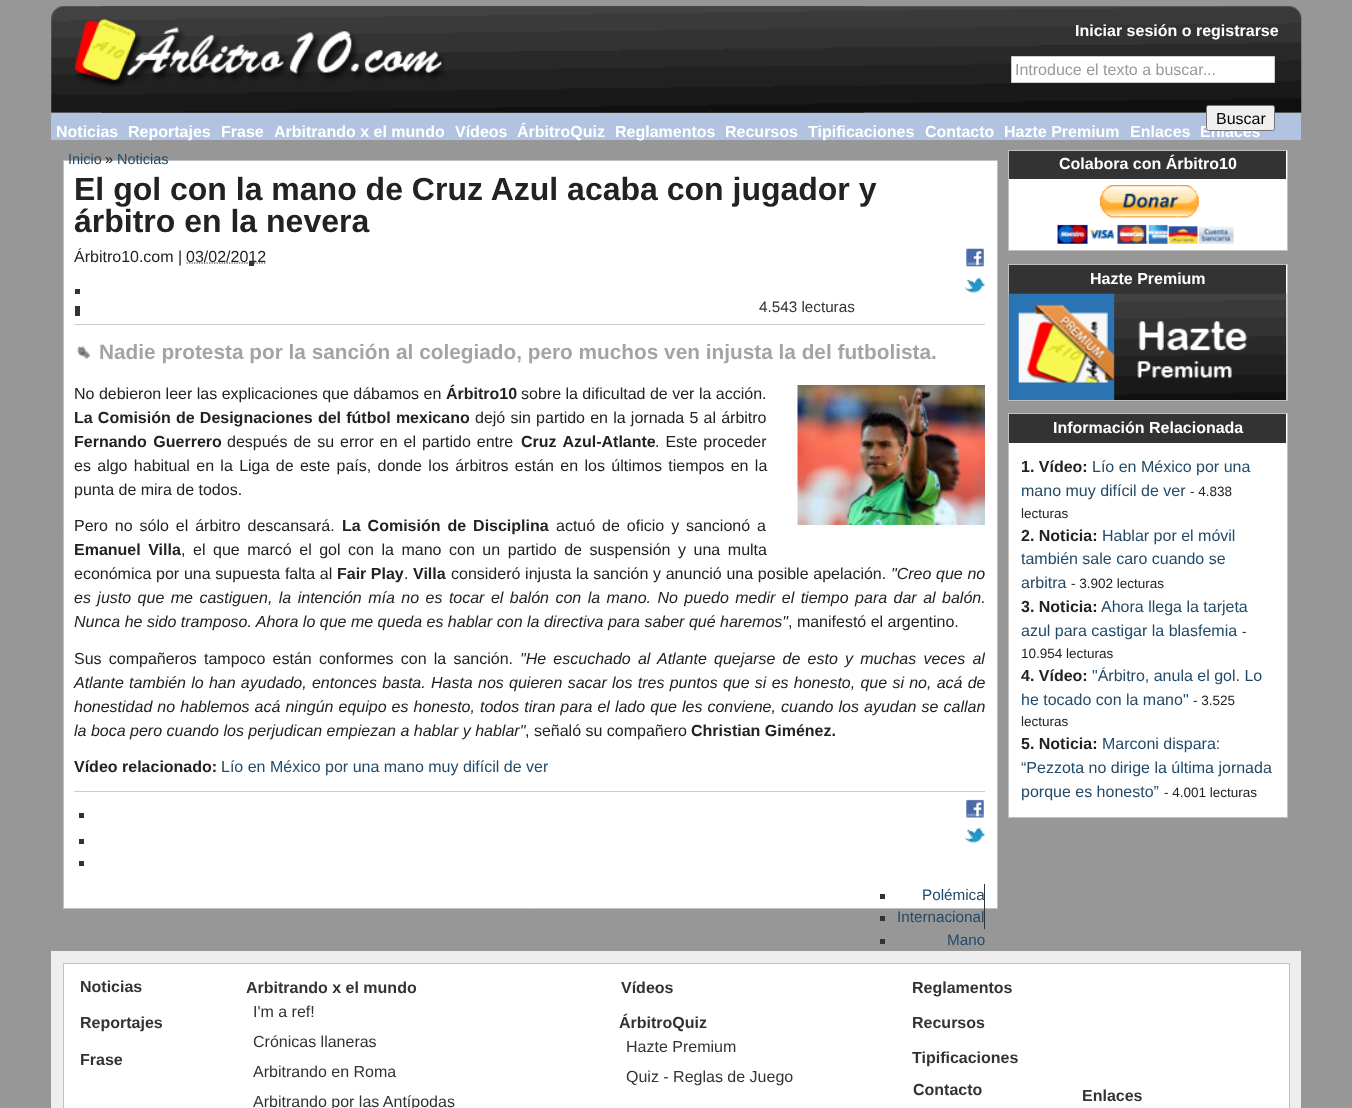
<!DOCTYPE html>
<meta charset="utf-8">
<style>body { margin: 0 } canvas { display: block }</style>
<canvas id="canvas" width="1352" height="1108"></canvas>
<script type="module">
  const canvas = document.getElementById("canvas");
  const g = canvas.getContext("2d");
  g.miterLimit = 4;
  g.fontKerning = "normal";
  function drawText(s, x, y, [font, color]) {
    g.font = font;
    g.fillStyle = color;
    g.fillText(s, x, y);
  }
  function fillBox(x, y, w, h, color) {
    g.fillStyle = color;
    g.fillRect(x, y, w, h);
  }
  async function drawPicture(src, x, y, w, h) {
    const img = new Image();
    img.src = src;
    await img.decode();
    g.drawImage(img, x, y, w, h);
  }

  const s1 = ["bold 16px Liberation Sans", "#FFFFFF"];
  const s2 = ["16px Liberation Sans", "#999999"];
  const s3 = ["16px Liberation Sans", "#000000"];
  const s4 = ["14.5px Liberation Sans", "#234B69"];
  const s5 = ["14.5px Liberation Sans", "#222222"];
  const s6 = ["bold 32px Liberation Sans", "#222222"];
  const s7 = ["16px Liberation Sans", "#222222"];
  const s8 = ["15.25px Liberation Sans", "#333333"];
  const s9 = ["bold 20.8px Liberation Sans", "#A8A3A3"];
  const s10 = ["bold 16px Liberation Sans", "#222222"];
  const s11 = ["italic 16px Liberation Sans", "#222222"];
  const s12 = ["16px Liberation Sans", "#234B69"];
  const s13 = ["15.25px Liberation Sans", "#234B69"];
  const s14 = ["13.5px Liberation Sans", "#222222"];
  const s15 = ["bold 16px Liberation Sans", "#333333"];
  const s16 = ["16px Liberation Sans", "#333333"];

  fillBox(0, 0, 1352, 1108, "#979797");
  await drawPicture("pic1.png", 101, 6, 1201, 107);
  await drawPicture("pic2.png", 51, 6, 813, 107);
  await drawPicture("pic3.png", 74, 18, 372, 69);
  drawText("Iniciar sesión o registrarse", 1075, 36, s1);
  g.beginPath();
  g.rect(1011.5, 56.5, 263, 26);
  g.fill();
  g.strokeStyle = "#CCCCCC";
  g.stroke();
  drawText("Introduce el texto a buscar...", 1015, 75, s2);
  fillBox(51, 113, 1250, 27, "#B1C3E1");
  drawText("Enlaces", 1200, 137, s1);
  g.fillStyle = "#EFEFEF";
  g.beginPath();
  g.roundRect(1206.5, 105.5, 68, 25, 2);
  g.fill();
  g.strokeStyle = "#767676";
  g.stroke();
  drawText("Buscar", 1216, 124, s3);
  drawText("Noticias", 56, 137, s1);
  drawText("Reportajes", 128, 137, s1);
  drawText("Frase", 221, 137, s1);
  drawText("Arbitrando x el mundo", 274, 137, s1);
  drawText("Vídeos", 455, 137, s1);
  drawText("ÁrbitroQuiz", 517, 137, s1);
  drawText("Reglamentos", 615, 137, s1);
  drawText("Recursos", 725, 137, s1);
  drawText("Tipificaciones", 808, 137, s1);
  drawText("Contacto", 925, 137, s1);
  drawText("Hazte Premium", 1004, 137, s1);
  drawText("Enlaces", 1130, 137, s1);
  g.beginPath();
  g.rect(63.5, 160.5, 934, 748);
  g.fill();
  g.strokeStyle = "#C0C0C0";
  g.stroke();
  drawText("Inicio", 68, 164, s4);
  drawText("»", 105, 164, s5);
  drawText("Noticias", 117, 164, s4);
  drawText("El gol con la mano de Cruz Azul acaba con jugador y", 74, 200, s6);
  drawText("árbitro en la nevera", 74, 232, s6);
  drawText("Árbitro10.com |", 74, 262, s7);
  g.beginPath();
  g.moveTo(186.5, 263);
  g.lineTo(266.5, 263);
  g.strokeStyle = "#222222";
  g.lineWidth = 1.2;
  g.setLineDash([1.25, 1.25]);
  g.stroke();
  drawText("03/02/2012", 186, 262, s7);
  fillBox(74, 324, 911, 1, "#CCCCCC");
  fillBox(249, 261, 5, 5, "#333333");
  await drawPicture("pic4.png", 966, 248, 18, 19);
  fillBox(75, 289, 5, 5, "#333333");
  await drawPicture("pic5.png", 965, 277, 20, 16);
  fillBox(75, 306, 5, 10, "#333333");
  drawText("4.543 lecturas", 759, 312, s8);
  await drawPicture("pic6.png", 77, 346, 13, 13);
  drawText("Nadie protesta por la sanción al colegiado, pero muchos ven injusta la del futbolista.", 99, 359, s9);
  drawText("No debieron leer las explicaciones que dábamos en", 74, 399, s7);
  drawText("Árbitro10", 446, 399, s10);
  drawText("sobre la dificultad de ver la acción.", 521, 399, s7);
  await drawPicture("pic7.png", 797, 385, 188, 140);
  g.wordSpacing = "0.75px";
  drawText("La Comisión de Designaciones del fútbol mexicano", 74, 423, s10);
  drawText("dejó sin partido en la jornada 5 al árbitro", 475, 423, s7);
  g.wordSpacing = "2px";
  drawText("Fernando Guerrero", 74, 447, s10);
  g.wordSpacing = "1.5px";
  drawText("después de su error en el partido entre", 227, 447, s7);
  g.wordSpacing = "2px";
  drawText("Cruz Azul-Atlante", 521, 447, s10);
  g.wordSpacing = "1.5px";
  drawText(". Este proceder", 655, 447, s7);
  g.wordSpacing = "1.9px";
  drawText("es algo habitual en la Liga de este país, donde los árbitros están en los últimos tiempos en la", 74, 471, s7);
  g.wordSpacing = "0px";
  drawText("punta de mira de todos.", 74, 495, s7);
  g.wordSpacing = "2.5px";
  drawText("Pero no sólo el árbitro descansará.", 74, 531, s7);
  drawText("La Comisión de Disciplina", 342, 531, s10);
  drawText("actuó de oficio y sancionó a", 556, 531, s7);
  g.wordSpacing = "3.1px";
  drawText("Emanuel Villa", 74, 555, s10);
  drawText(", el que marcó el gol con la mano con un partido de suspensión y una multa", 181, 555, s7);
  g.wordSpacing = "0.25px";
  drawText("económica por una supuesta falta al", 74, 579, s7);
  g.wordSpacing = "0px";
  drawText("Fair Play", 337, 579, s10);
  drawText(".", 404, 579, s7);
  drawText("Villa", 413, 579, s10);
  g.wordSpacing = "0.25px";
  drawText("consideró injusta la sanción y anunció una posible apelación.", 451, 579, s7);
  drawText("\"Creo que no", 891, 579, s11);
  g.wordSpacing = "2px";
  drawText("es justo que me castiguen, la intención mía no es tocar el balón con la mano. No puedo medir el tiempo para dar al balón.", 74, 603, s11);
  g.wordSpacing = "0px";
  drawText("Nunca he sido tramposo. Ahora lo que me queda es hablar con la directiva para saber qué haremos\"", 74, 627, s11);
  drawText(", manifestó el argentino.", 788, 627, s7);
  g.wordSpacing = "2.75px";
  drawText("Sus compañeros tampoco están conformes con la sanción.", 74, 664, s7);
  g.save();
  g.beginPath();
  g.rect(74, 244, 911, 652);
  g.clip();
  drawText("\"He escuchado al Atlante quejarse de esto y muchas veces al", 520, 664, s11);
  g.restore();
  g.wordSpacing = "0.8px";
  drawText("Atlante también lo han ayudado, entonces basta. Hasta nos quieren sacar los tres puntos que si es honesto, que si no, acá de", 74, 688, s11);
  g.wordSpacing = "0.6px";
  drawText("honestidad no hablemos acá ningún equipo es honesto, todos tiran para el lado que les conviene, cuando los ayudan se callan", 74, 712, s11);
  g.wordSpacing = "0px";
  drawText("la boca pero cuando los perjudican empiezan a hablar y hablar\"", 74, 736, s11);
  drawText(", señaló su compañero", 525, 736, s7);
  drawText("Christian Giménez.", 691, 736, s10);
  drawText("Vídeo relacionado:", 74, 772, s10);
  drawText("Lío en México por una mano muy difícil de ver", 221, 772, s12);
  fillBox(74, 791, 911, 1, "#CCCCCC");
  fillBox(79, 813, 5, 5, "#333333");
  await drawPicture("pic8.png", 966, 799, 18, 19);
  fillBox(79, 839, 5, 5, "#333333");
  await drawPicture("pic5.png", 965, 827, 20, 16);
  fillBox(79, 861, 5, 5, "#333333");
  fillBox(984, 884, 1, 45, "#333333");
  fillBox(880, 894, 5, 5, "#333333");
  drawText("Polémica", 922, 900, s13);
  fillBox(880, 916, 5, 5, "#333333");
  drawText("Internacional", 897, 922, s13);
  fillBox(880, 939, 5, 5, "#333333");
  drawText("Mano", 947, 945, s13);
  g.fillStyle = "#FFFFFF";
  g.beginPath();
  g.rect(1008.5, 150.5, 279, 100);
  g.fill();
  g.strokeStyle = "#C0C0C0";
  g.lineWidth = 1;
  g.setLineDash([]);
  g.stroke();
  fillBox(1009, 151, 277, 28, "#333333");
  drawText("Colabora con Árbitro10", 1059, 169, s1);
  await drawPicture("pic9.png", 1057, 185, 177, 59);
  fillBox(1286, 265, 1, 135, "#FFFFFF");
  g.strokeRect(1008.5, 264.5, 279, 136);
  fillBox(1009, 265, 277, 29, "#333333");
  drawText("Hazte Premium", 1090, 284, s1);
  await drawPicture("pic10.png", 1008, 293, 279, 107);
  g.beginPath();
  g.rect(1008.5, 413.5, 279, 404);
  g.fill();
  g.stroke();
  fillBox(1009, 414, 277, 29, "#333333");
  drawText("Información Relacionada", 1053, 433, s1);
  drawText("1. Vídeo:", 1021, 472, s10);
  drawText("Lío en México por una", 1092, 472, s12);
  drawText("mano muy difícil de ver", 1021, 496, s12);
  drawText("- 4.838", 1190, 496, s14);
  drawText("lecturas", 1021, 518, s14);
  drawText("2. Noticia:", 1021, 541, s10);
  drawText("Hablar por el móvil", 1102, 541, s12);
  drawText("también sale caro cuando se", 1021, 564, s12);
  drawText("arbitra", 1021, 588, s12);
  drawText("- 3.902 lecturas", 1071, 588, s14);
  drawText("3. Noticia:", 1021, 612, s10);
  drawText("Ahora llega la tarjeta", 1101, 612, s12);
  drawText("azul para castigar la blasfemia", 1021, 636, s12);
  drawText("-", 1242, 636, s14);
  drawText("10.954 lecturas", 1021, 658, s14);
  drawText("4. Vídeo:", 1021, 681, s10);
  drawText("\"Árbitro, anula el gol. Lo", 1092, 681, s12);
  drawText("he tocado con la mano\"", 1021, 705, s12);
  drawText("- 3.525", 1193, 705, s14);
  drawText("lecturas", 1021, 726, s14);
  drawText("5. Noticia:", 1021, 749, s10);
  drawText("Marconi dispara:", 1102, 749, s12);
  drawText("“Pezzota no dirige la última jornada", 1021, 773, s12);
  drawText("porque es honesto”", 1021, 797, s12);
  drawText("- 4.001 lecturas", 1164, 797, s14);
  fillBox(51, 951, 1250, 157, "#EEEEEE");
  g.fillStyle = "#FFFFFF";
  g.beginPath();
  g.rect(63.5, 963.5, 1226, 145);
  g.fill();
  g.stroke();
  drawText("Noticias", 80, 992, s15);
  drawText("Arbitrando x el mundo", 246, 993, s15);
  drawText("I'm a ref!", 253, 1017, s16);
  drawText("Crónicas llaneras", 253, 1047, s16);
  drawText("Arbitrando en Roma", 253, 1077, s16);
  drawText("Arbitrando por las Antípodas", 253, 1107, s16);
  drawText("Vídeos", 621, 993, s15);
  drawText("Reglamentos", 912, 993, s15);
  drawText("Reportajes", 80, 1028, s15);
  drawText("ÁrbitroQuiz", 619, 1028, s15);
  drawText("Hazte Premium", 626, 1052, s16);
  drawText("Quiz - Reglas de Juego", 626, 1082, s16);
  drawText("Recursos", 912, 1028, s15);
  drawText("Frase", 80, 1065, s15);
  drawText("Tipificaciones", 912, 1063, s15);
  drawText("Contacto", 913, 1095, s15);
  drawText("Enlaces", 1082, 1101, s15);
</script>
